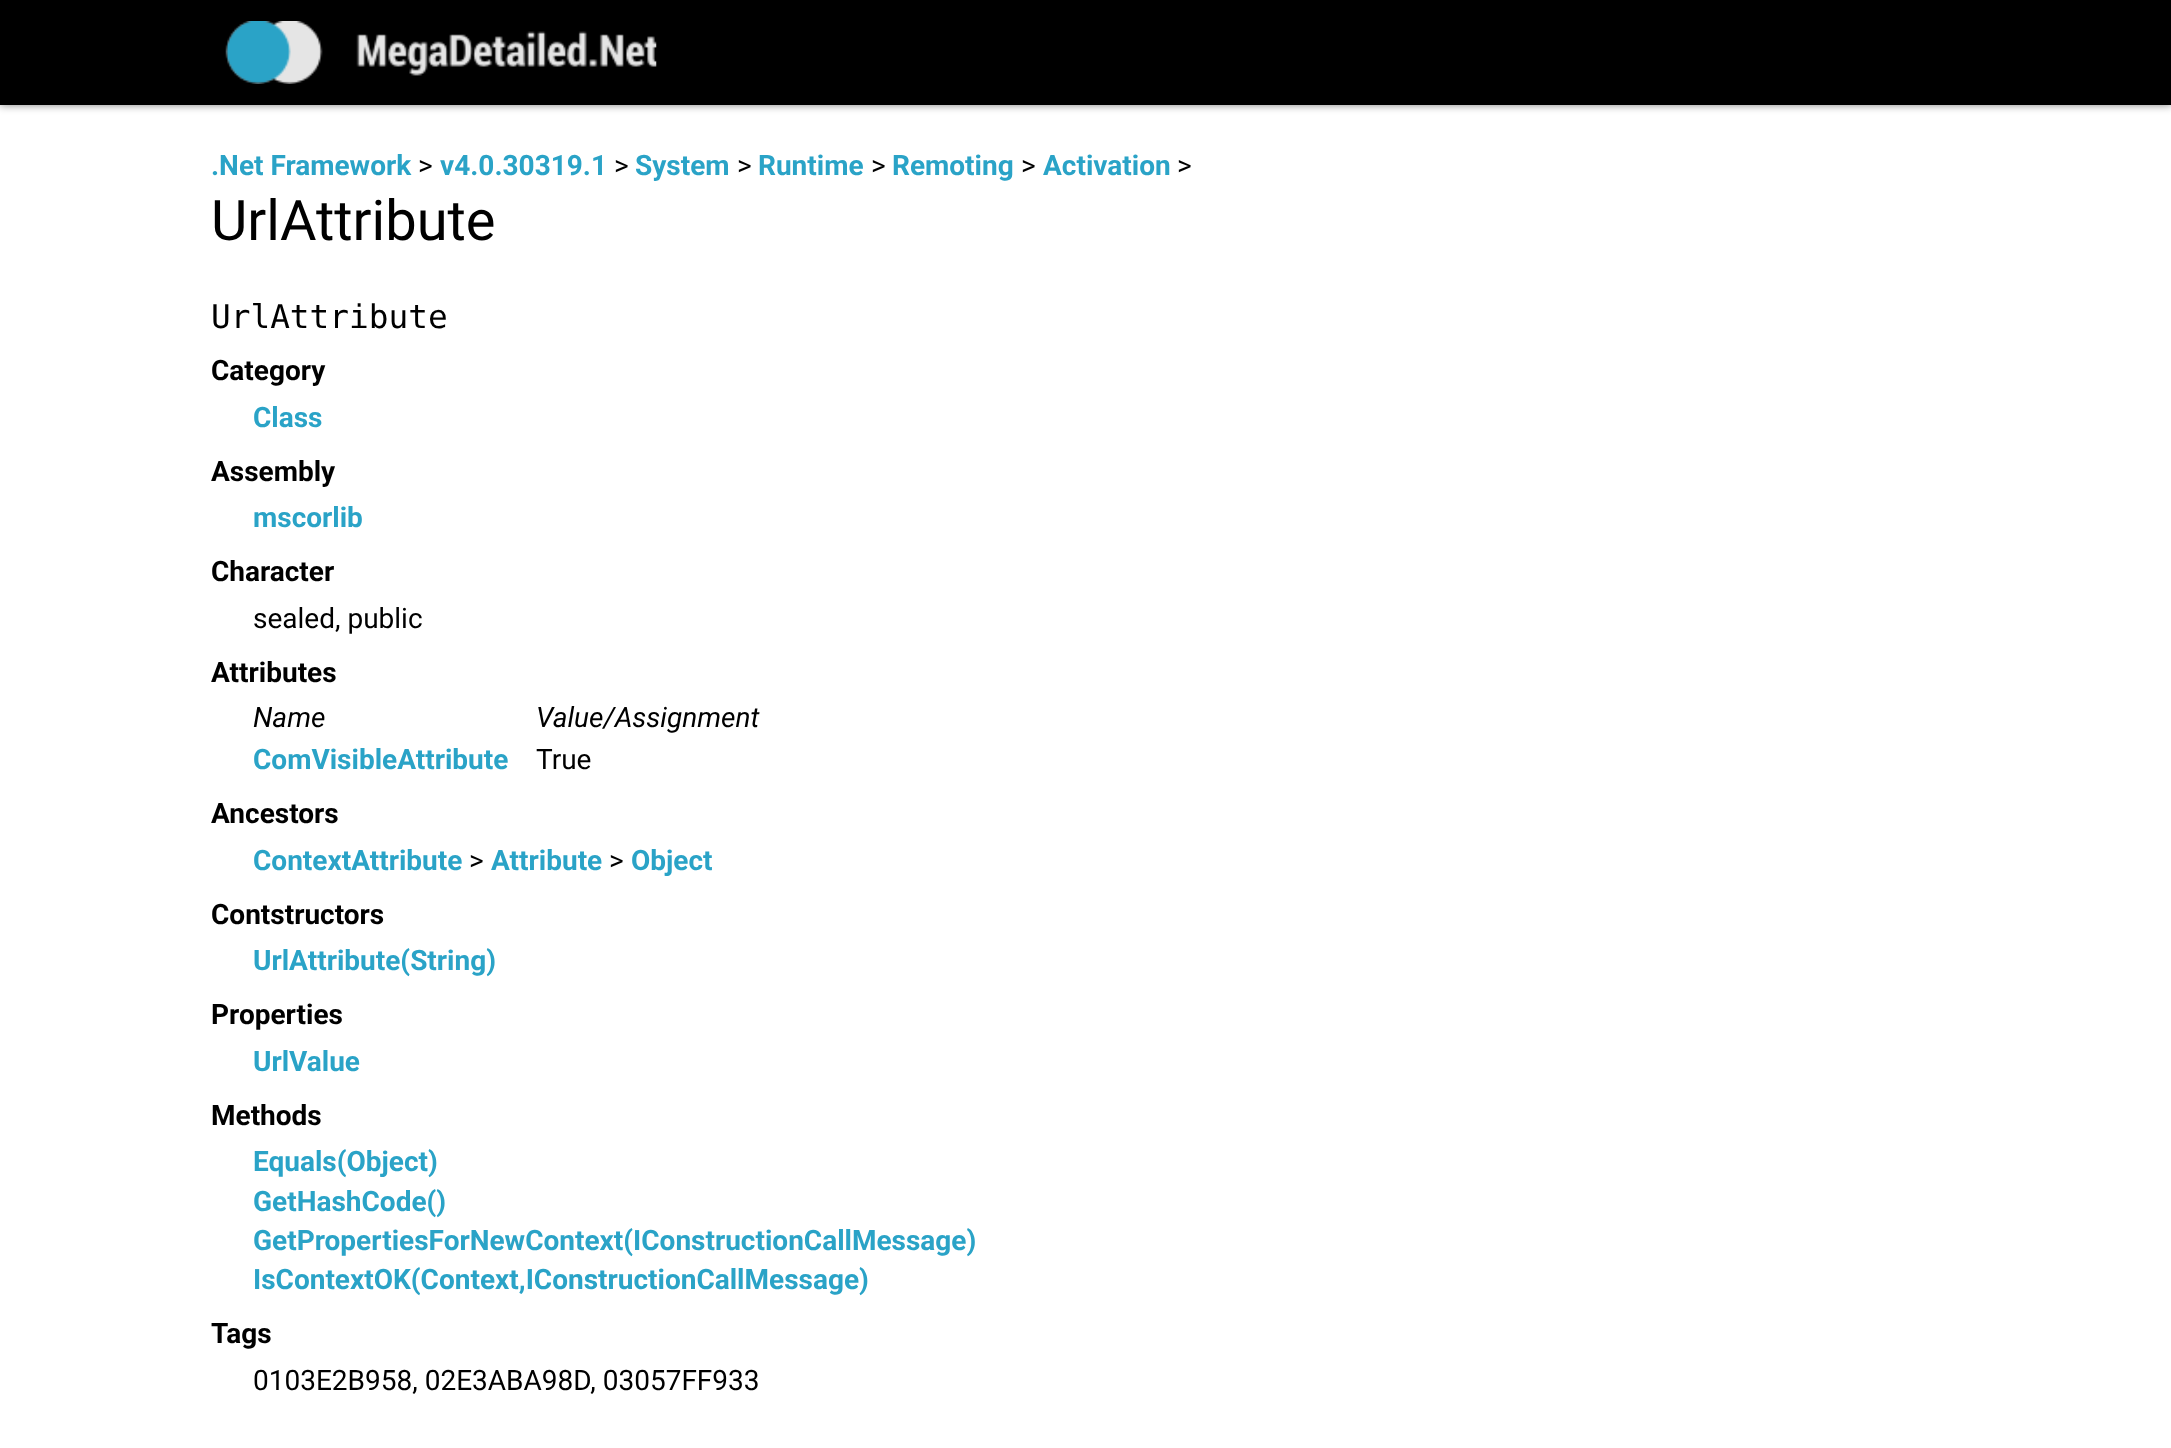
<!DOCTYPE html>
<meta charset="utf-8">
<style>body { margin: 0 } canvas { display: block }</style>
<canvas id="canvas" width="2171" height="1448"></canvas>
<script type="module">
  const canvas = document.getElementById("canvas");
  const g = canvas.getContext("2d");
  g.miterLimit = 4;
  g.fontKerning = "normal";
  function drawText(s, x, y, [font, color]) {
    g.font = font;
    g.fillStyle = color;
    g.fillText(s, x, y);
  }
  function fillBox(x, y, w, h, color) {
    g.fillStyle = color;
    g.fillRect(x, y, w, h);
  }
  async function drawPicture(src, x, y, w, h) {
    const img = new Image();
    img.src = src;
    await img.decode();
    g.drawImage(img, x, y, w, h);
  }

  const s1 = ["bold 28px Roboto", "#2AA3C7"];
  const s2 = ["28px Roboto", "#000000"];
  const s3 = ["56px Roboto", "#000000"];
  const s4 = ["32.75px DejaVu Sans Mono", "#000000"];
  const s5 = ["bold 28px Roboto", "#000000"];
  const s6 = ["italic 28px Roboto", "#000000"];

  fillBox(0, 0, 2171, 1448, "#FFFFFF");
  g.fillStyle = "rgba(0, 0, 0, 0.5)";
  g.filter = "blur(4.5px)";
  g.beginPath();
  g.rect(0, 0, 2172, 105);
  g.fill();
  g.filter = "none";
  fillBox(0, 0, 2171, 105, "#000000");
  await drawPicture("pic1.png", 225, 21, 432, 63);
  drawText(".Net Framework", 211, 175, s1);
  drawText(">", 418, 175, s2);
  drawText("v4.0.30319.1", 440, 175, s1);
  drawText(">", 614, 175, s2);
  drawText("System", 635, 175, s1);
  drawText(">", 737, 175, s2);
  drawText("Runtime", 758, 175, s1);
  drawText(">", 871, 175, s2);
  drawText("Remoting", 892, 175, s1);
  drawText(">", 1021, 175, s2);
  drawText("Activation", 1043, 175, s1);
  drawText(">", 1177, 175, s2);
  drawText("UrlAttribute", 211, 240, s3);
  drawText("UrlAttribute", 211, 328, s4);
  drawText("Category", 211, 380, s5);
  drawText("Class", 253, 427, s1);
  drawText("Assembly", 211, 481, s5);
  drawText("mscorlib", 253, 527, s1);
  drawText("Character", 211, 581, s5);
  drawText("sealed, public", 253, 628, s2);
  drawText("Attributes", 211, 682, s5);
  drawText("Name", 253, 727, s6);
  drawText("Value/Assignment", 536, 727, s6);
  drawText("ComVisibleAttribute", 253, 769, s1);
  drawText("True", 536, 769, s2);
  drawText("Ancestors", 211, 823, s5);
  drawText("ContextAttribute", 253, 870, s1);
  drawText(">", 469, 870, s2);
  drawText("Attribute", 491, 870, s1);
  drawText(">", 609, 870, s2);
  drawText("Object", 631, 870, s1);
  drawText("Contstructors", 211, 924, s5);
  drawText("UrlAttribute(String)", 253, 970, s1);
  drawText("Properties", 211, 1024, s5);
  drawText("UrlValue", 253, 1071, s1);
  drawText("Methods", 211, 1125, s5);
  drawText("Equals(Object)", 253, 1171, s1);
  drawText("GetHashCode()", 253, 1211, s1);
  drawText("GetPropertiesForNewContext(IConstructionCallMessage)", 253, 1250, s1);
  drawText("IsContextOK(Context,IConstructionCallMessage)", 253, 1289, s1);
  drawText("Tags", 211, 1343, s5);
  drawText("0103E2B958, 02E3ABA98D, 03057FF933", 253, 1390, s2);
</script>
